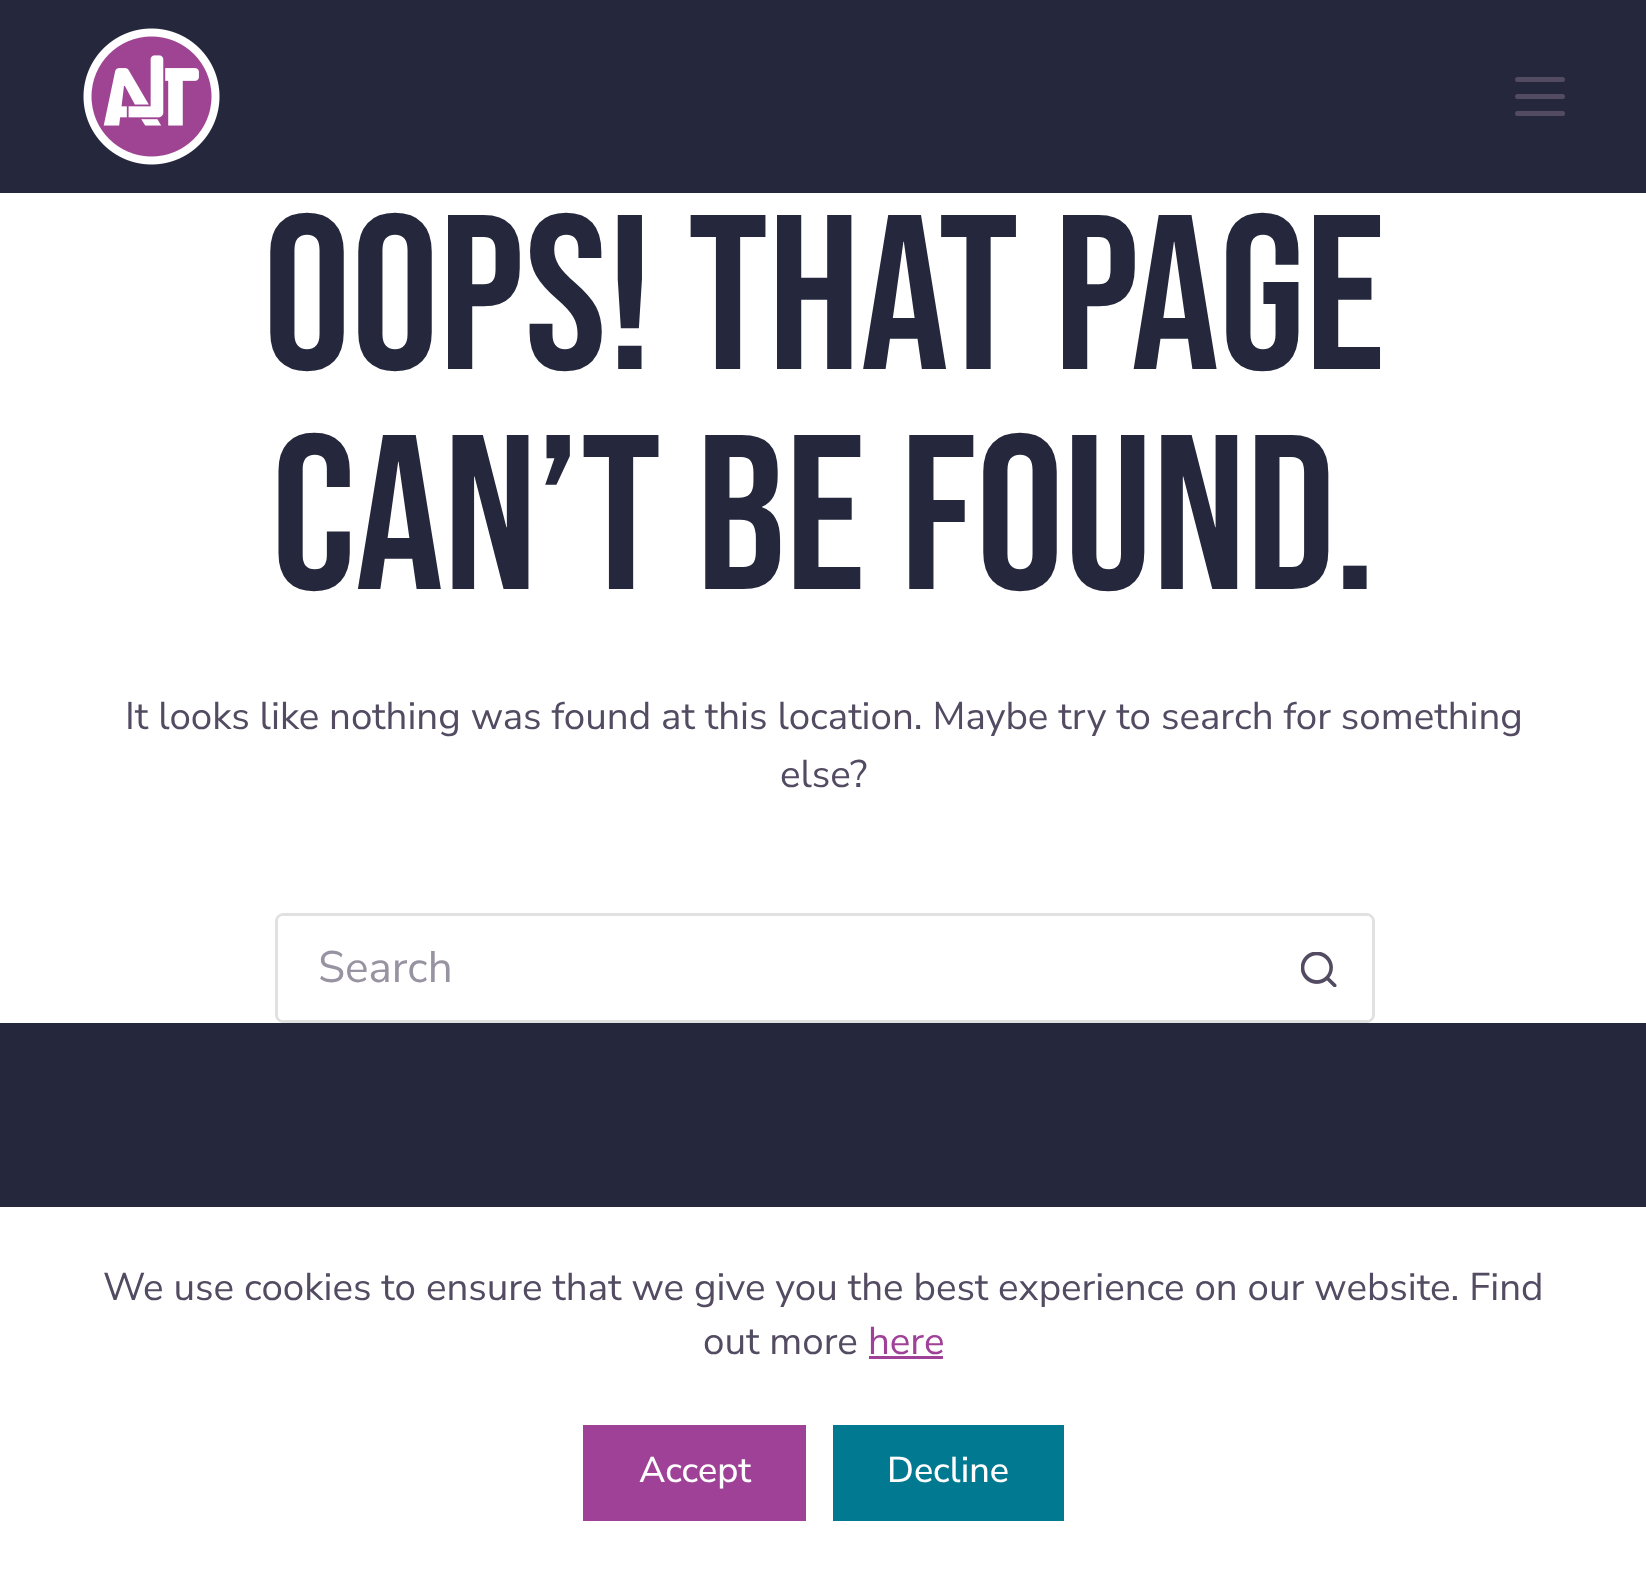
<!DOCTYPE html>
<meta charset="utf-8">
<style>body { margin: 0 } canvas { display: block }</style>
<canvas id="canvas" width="1646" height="1575"></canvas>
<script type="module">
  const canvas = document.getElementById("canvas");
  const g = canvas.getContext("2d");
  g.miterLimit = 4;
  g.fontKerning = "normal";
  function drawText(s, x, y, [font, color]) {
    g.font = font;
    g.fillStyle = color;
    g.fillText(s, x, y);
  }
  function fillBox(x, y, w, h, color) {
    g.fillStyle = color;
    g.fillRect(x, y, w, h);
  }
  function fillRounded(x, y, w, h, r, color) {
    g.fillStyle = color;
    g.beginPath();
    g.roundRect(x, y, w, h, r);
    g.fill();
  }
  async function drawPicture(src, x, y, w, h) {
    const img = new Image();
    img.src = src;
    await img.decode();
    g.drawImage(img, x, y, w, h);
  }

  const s1 = ["220px Bebas Neue", "#25283D"];
  const s2 = ["38.5px Nunito Sans", "#534B62"];
  const s3 = ["44px Nunito Sans", "#9893A1"];
  const s4 = ["38.5px Nunito Sans", "#A04198"];
  const s5 = ["500 36px Nunito Sans", "#FFFFFF"];

  fillBox(0, 0, 1646, 1575, "#FFFFFF");
  fillBox(0, 0, 1646, 193, "#25283D");
  await drawPicture("pic1.png", 83, 28, 137, 137);
  fillRounded(1515, 77, 50, 5, 2.5, "#534B62");
  fillRounded(1515, 94, 50, 5, 2.5, "#534B62");
  fillRounded(1515, 111, 50, 5, 2.5, "#534B62");
  drawText("OOPS! THAT PAGE", 263, 369, s1);
  drawText("CAN’T BE FOUND.", 271, 589, s1);
  drawText("It looks like nothing was found at this location. Maybe try to search for something", 125, 729, s2);
  drawText("else?", 780, 787, s2);
  g.fillStyle = "#E1E1E1";
  g.beginPath();
  g.moveTo(283, 913);
  g.lineTo(1265, 913);
  g.lineTo(1265, 1023);
  g.lineTo(283, 1023);
  g.bezierCurveTo(279, 1023, 275, 1019, 275, 1015);
  g.lineTo(275, 921);
  g.bezierCurveTo(275, 917, 279, 913, 283, 913);
  g.closePath();
  g.moveTo(283, 916);
  g.lineTo(1265, 916);
  g.lineTo(1265, 1020);
  g.lineTo(283, 1020);
  g.bezierCurveTo(280, 1020, 278, 1018, 278, 1015);
  g.lineTo(278, 921);
  g.bezierCurveTo(278, 918, 280, 916, 283, 916);
  g.closePath();
  g.fill("evenodd");
  drawText("Search", 318, 982, s3);
  g.fillStyle = "#E1E1E1";
  g.beginPath();
  g.moveTo(1265, 913);
  g.lineTo(1367, 913);
  g.bezierCurveTo(1371, 913, 1375, 917, 1375, 921);
  g.lineTo(1375, 1015);
  g.bezierCurveTo(1375, 1019, 1371, 1023, 1367, 1023);
  g.lineTo(1265, 1023);
  g.closePath();
  g.moveTo(1265, 916);
  g.lineTo(1367, 916);
  g.bezierCurveTo(1370, 916, 1372, 918, 1372, 921);
  g.lineTo(1372, 1015);
  g.bezierCurveTo(1372, 1018, 1370, 1020, 1367, 1020);
  g.lineTo(1265, 1020);
  g.closePath();
  g.fill("evenodd");
  await drawPicture("pic2.png", 1301, 952, 36, 35);
  fillBox(0, 1023, 1646, 184, "#25283D");
  drawText("We use cookies to ensure that we give you the best experience on our website. Find", 103, 1300, s2);
  drawText("out more", 703, 1354, s2);
  drawText("here", 868, 1354, s4);
  fillBox(869, 1356, 74, 3, "#A04198");
  fillBox(583, 1425, 223, 96, "#A04198");
  drawText("Accept", 639, 1482, s5);
  fillBox(833, 1425, 231, 96, "#007991");
  drawText("Decline", 887, 1482, s5);
</script>
